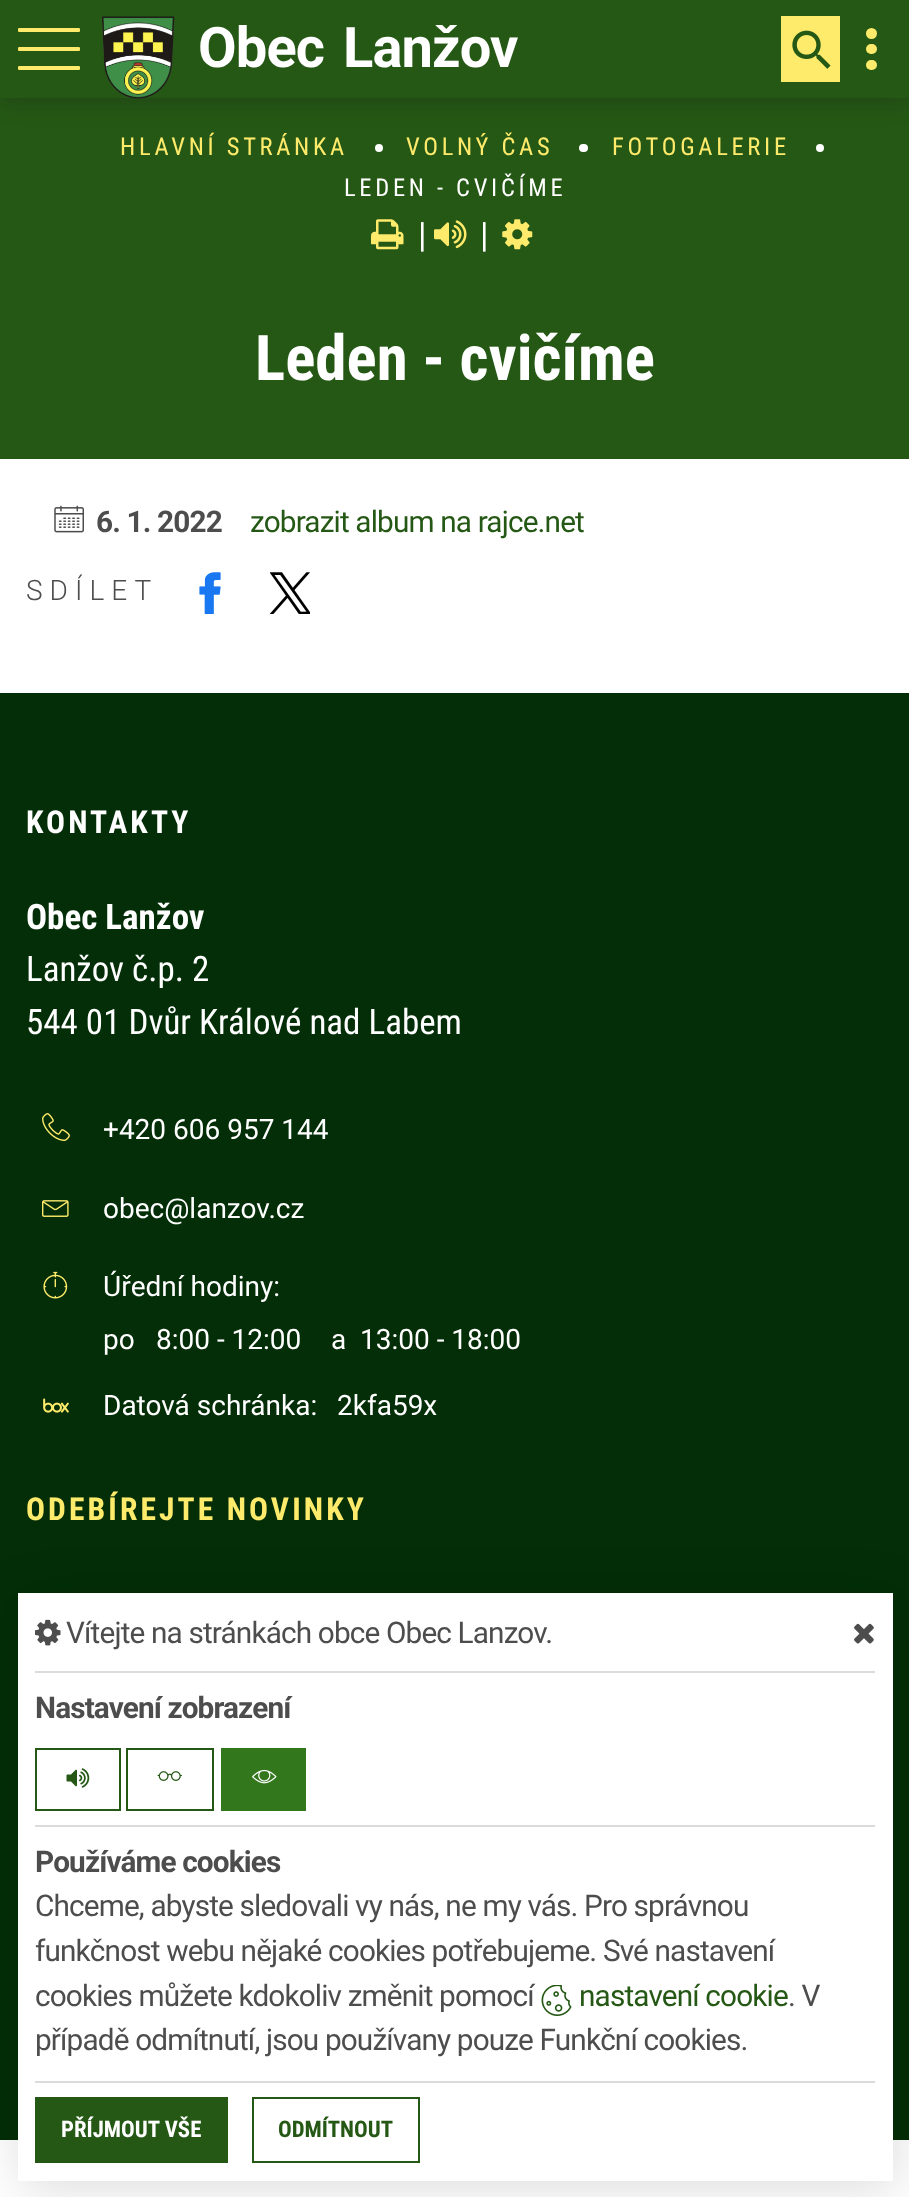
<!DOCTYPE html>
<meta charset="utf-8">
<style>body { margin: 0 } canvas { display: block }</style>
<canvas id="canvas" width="909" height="2197"></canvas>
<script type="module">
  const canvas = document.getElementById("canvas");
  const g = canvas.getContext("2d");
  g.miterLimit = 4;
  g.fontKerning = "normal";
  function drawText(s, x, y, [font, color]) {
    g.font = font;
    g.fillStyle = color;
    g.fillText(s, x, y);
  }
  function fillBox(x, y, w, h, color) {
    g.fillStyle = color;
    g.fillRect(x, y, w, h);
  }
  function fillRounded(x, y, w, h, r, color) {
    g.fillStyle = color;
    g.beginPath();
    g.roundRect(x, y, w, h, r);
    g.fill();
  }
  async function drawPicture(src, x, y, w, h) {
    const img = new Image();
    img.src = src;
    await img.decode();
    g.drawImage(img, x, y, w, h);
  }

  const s1 = ["bold 56px Roboto", "#FFFFFF"];
  const s2 = ["24.5px Roboto Condensed", "#FFEB6B"];
  const s3 = ["24.5px Roboto Condensed", "#FFFFFF"];
  const s4 = ["35px Roboto", "#FFFFFF"];
  const s5 = ["bold 63px Roboto Condensed", "#FFFFFF"];
  const s6 = ["bold 29.75px Roboto", "#4D4D4D"];
  const s7 = ["29.75px Roboto", "#255815"];
  const s8 = ["300 28px Roboto", "#4D4D4D"];
  const s9 = ["bold 31.5px Roboto Condensed", "#FFFFFF"];
  const s10 = ["bold 35px Roboto Condensed", "#FFFFFF"];
  const s11 = ["35px Roboto Condensed", "#FFFFFF"];
  const s12 = ["28px Roboto", "#FFFFFF"];
  const s13 = ["bold 31.5px Roboto Condensed", "#FFEB6B"];
  const s14 = ["29.75px Roboto", "#4D4D4D"];
  const s15 = ["bold 22.75px Roboto Condensed", "#FFFFFF"];
  const s16 = ["bold 22.75px Roboto Condensed", "#255815"];

  fillBox(0, 0, 909, 2197, "#FFFFFF");
  fillBox(0, 98, 909, 361, "#255815");
  g.fillStyle = "rgba(21, 21, 21, 0.35)";
  g.filter = "blur(13px)";
  g.beginPath();
  g.rect(0, 0, 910, 98);
  g.fill();
  g.filter = "none";
  fillBox(0, 0, 909, 98, "#255815");
  g.fillStyle = "#FFEB6B";
  g.beginPath();
  g.moveTo(79, 51);
  g.lineTo(19, 51);
  g.bezierCurveTo(18, 51, 18, 50, 18, 49);
  g.bezierCurveTo(18, 48, 18, 47, 19, 47);
  g.lineTo(79, 47);
  g.bezierCurveTo(80, 47, 80, 48, 80, 49);
  g.bezierCurveTo(80, 50, 80, 51, 79, 51);
  g.closePath();
  g.moveTo(79, 70);
  g.lineTo(19, 70);
  g.bezierCurveTo(18, 70, 18, 69, 18, 68);
  g.bezierCurveTo(18, 67, 18, 66, 19, 66);
  g.lineTo(79, 66);
  g.bezierCurveTo(80, 66, 80, 67, 80, 68);
  g.bezierCurveTo(80, 69, 80, 70, 79, 70);
  g.closePath();
  g.moveTo(79, 32);
  g.lineTo(19, 32);
  g.bezierCurveTo(18, 32, 18, 31, 18, 30);
  g.bezierCurveTo(18, 29, 18, 28, 19, 28);
  g.lineTo(79, 28);
  g.bezierCurveTo(80, 28, 80, 29, 80, 30);
  g.bezierCurveTo(80, 31, 80, 32, 79, 32);
  g.closePath();
  g.fill();
  await drawPicture("pic1.png", 101, 16, 74, 83);
  g.letterSpacing = "-0.85px";
  drawText("Obec", 198, 67, s1);
  drawText("Lanžov", 343, 67, s1);
  fillRounded(866, 44, 11, 10, 5, "#FFEB6B");
  g.beginPath();
  g.arc(871.5, 33.5, 5.5, 0, Math.PI * 2);
  g.fill();
  fillRounded(866, 60, 11, 10, 5, "#FFEB6B");
  fillBox(781, 16, 59, 66, "#FFEB6B");
  await drawPicture("pic2.png", 792, 30, 39, 39);
  g.letterSpacing = "3.7px";
  drawText("HLAVNÍ STRÁNKA", 120, 155, s2);
  g.fillStyle = "#FFFFFF";
  g.beginPath();
  g.arc(379, 148, 4, 0, Math.PI * 2);
  g.fill();
  drawText("VOLNÝ ČAS", 406, 155, s2);
  fillRounded(579, 144, 9, 8, 4, "#FFFFFF");
  drawText("FOTOGALERIE", 612, 155, s2);
  g.fillStyle = "#FFFFFF";
  g.beginPath();
  g.arc(820, 148, 4, 0, Math.PI * 2);
  g.fill();
  drawText("LEDEN - CVIČÍME", 344, 196, s3);
  await drawPicture("pic3.png", 371, 219, 33, 31);
  g.letterSpacing = "-0.85px";
  drawText("|", 418, 247, s4);
  await drawPicture("pic4.png", 434, 220, 33, 29);
  drawText("|", 480, 247, s4);
  await drawPicture("pic5.png", 502, 219, 31, 31);
  g.letterSpacing = "0px";
  drawText("Leden - cvičíme", 255, 380, s5);
  await drawPicture("pic6.png", 54, 505, 30, 28);
  g.letterSpacing = "-0.85px";
  drawText("6. 1. 2022", 96, 532, s6);
  drawText("zobrazit album na rajce.net", 250, 532, s7);
  g.letterSpacing = "7px";
  drawText("SDÍLET", 26, 600, s8);
  await drawPicture("pic7.png", 199, 572, 22, 42);
  await drawPicture("pic8.png", 270, 572, 40, 42);
  fillBox(0, 693, 909, 1447, "#032E07");
  g.letterSpacing = "3.1px";
  drawText("KONTAKTY", 26, 833, s9);
  g.letterSpacing = "0px";
  drawText("Obec Lanžov", 26, 929, s10);
  drawText("Lanžov č.p. 2", 26, 981, s11);
  drawText("544 01 Dvůr Králové nad Labem", 26, 1034, s11);
  await drawPicture("pic9.png", 42, 1113, 28, 28);
  drawText("+420 606 957 144", 103, 1139, s12);
  await drawPicture("pic10.png", 42, 1200, 27, 17);
  drawText("obec@lanzov.cz", 103, 1218, s12);
  await drawPicture("pic11.png", 43, 1271, 25, 28);
  drawText("Úřední hodiny:", 103, 1296, s12);
  drawText("po", 103, 1349, s12);
  drawText("8:00 - 12:00", 156, 1349, s12);
  drawText("a", 331, 1349, s12);
  drawText("13:00 - 18:00", 360, 1349, s12);
  await drawPicture("pic12.png", 43, 1398, 26, 15);
  drawText("Datová schránka:", 103, 1415, s12);
  drawText("2kfa59x", 337, 1415, s12);
  g.letterSpacing = "3.1px";
  drawText("ODEBÍREJTE NOVINKY", 26, 1520, s13);
  g.fillStyle = "rgba(0, 0, 0, 0.14)";
  g.filter = "blur(25.5px)";
  g.beginPath();
  g.rect(21, 1600, 875, 588);
  g.fill();
  g.filter = "none";
  fillBox(18, 1593, 875, 588, "#FFFFFF");
  await drawPicture("pic13.png", 35, 1619, 26, 27);
  g.letterSpacing = "-0.85px";
  drawText("Vítejte na stránkách obce Obec Lanzov.", 66, 1643, s14);
  await drawPicture("pic14.png", 854, 1623, 20, 21);
  fillBox(35, 1671, 840, 2, "#DBDBDB");
  drawText("Nastavení zobrazení", 35, 1718, s6);
  g.strokeStyle = "#255815";
  g.lineWidth = 2;
  g.strokeRect(36, 1749, 84, 61);
  await drawPicture("pic15.png", 66, 1768, 24, 20);
  g.strokeRect(127, 1749, 86, 61);
  await drawPicture("pic16.png", 157, 1771, 25, 10);
  fillBox(221, 1748, 85, 63, "#33771D");
  await drawPicture("pic17.png", 252, 1769, 25, 15);
  fillBox(35, 1825, 840, 2, "#DBDBDB");
  drawText("Používáme cookies", 35, 1872, s6);
  drawText("Chceme, abyste sledovali vy nás, ne my vás. Pro správnou", 35, 1916, s14);
  drawText("funkčnost webu nějaké cookies potřebujeme. Své nastavení", 35, 1961, s14);
  drawText("cookies můžete kdokoliv změnit pomocí", 35, 2006, s14);
  await drawPicture("pic18.png", 541, 1985, 31, 31);
  drawText("nastavení cookie", 579, 2006, s7);
  drawText(". V", 788, 2006, s14);
  drawText("případě odmítnutí, jsou používany pouze Funkční cookies.", 35, 2050, s14);
  fillBox(35, 2081, 840, 2, "#DBDBDB");
  fillBox(35, 2097, 193, 66, "#255815");
  g.letterSpacing = "0px";
  drawText("PŘÍJMOUT VŠE", 61, 2137, s15);
  g.strokeRect(253, 2098, 166, 64);
  drawText("ODMÍTNOUT", 278, 2137, s16);
</script>
